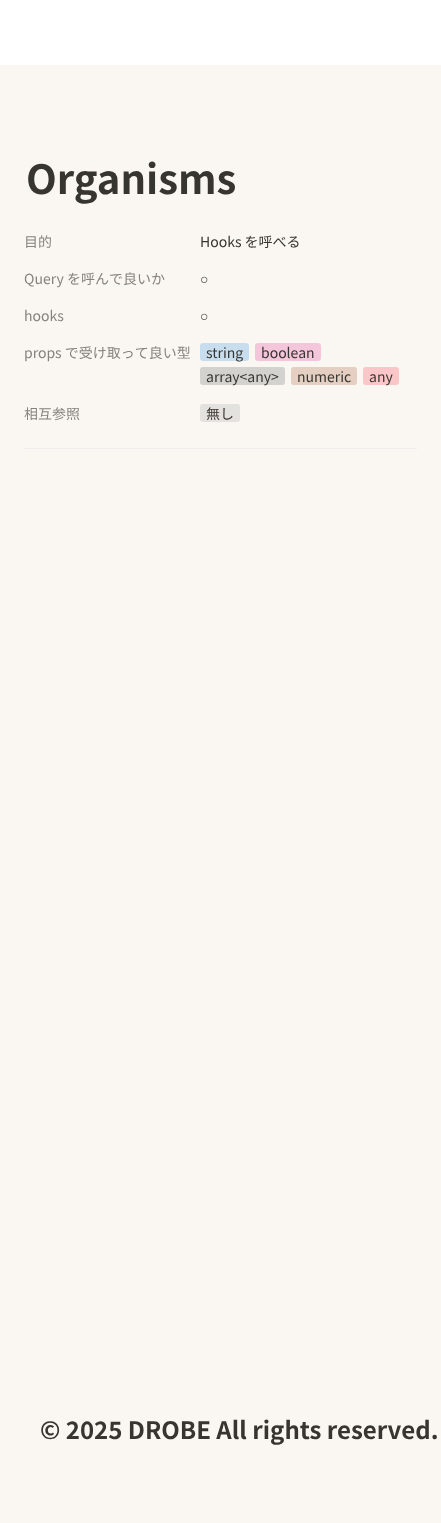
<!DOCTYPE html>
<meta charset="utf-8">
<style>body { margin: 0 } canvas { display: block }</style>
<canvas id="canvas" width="441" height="1523"></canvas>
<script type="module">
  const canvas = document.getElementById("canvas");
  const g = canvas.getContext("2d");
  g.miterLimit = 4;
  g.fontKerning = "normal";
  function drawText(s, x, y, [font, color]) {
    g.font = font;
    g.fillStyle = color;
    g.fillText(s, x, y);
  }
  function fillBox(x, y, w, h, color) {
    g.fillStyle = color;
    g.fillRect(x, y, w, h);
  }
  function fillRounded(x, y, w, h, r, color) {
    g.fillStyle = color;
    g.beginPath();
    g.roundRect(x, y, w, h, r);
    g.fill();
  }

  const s1 = ["bold 40px Noto Sans JP", "#37352F"];
  const s2 = ["14px Noto Sans JP", "#85837D"];
  const s3 = ["14px Noto Sans JP", "#37352F"];
  const s4 = ["14px Liberation Sans", "#37352F"];
  const s5 = ["bold 24px Noto Sans JP", "#37352F"];

  fillBox(0, 0, 441, 1523, "#FAF7F2");
  fillBox(0, 0, 441, 65, "#FFFFFF");
  drawText("Organisms", 26, 194, s1);
  drawText("目的", 24, 247, s2);
  drawText("Hooks を呼べる", 200, 247, s3);
  drawText("Query を呼んで良いか", 24, 284, s2);
  drawText("○", 200, 284, s4);
  drawText("hooks", 24, 321, s2);
  drawText("○", 200, 321, s4);
  drawText("props で受け取って良い型", 24, 358, s2);
  fillRounded(200, 343, 49, 18, 3, "#C8DEEE");
  drawText("string", 206, 358, s3);
  fillRounded(255, 343, 66, 18, 3, "#F4C6DB");
  drawText("boolean", 261, 358, s3);
  fillRounded(200, 367, 85, 18, 3, "#D4D2CE");
  drawText("array<any>", 206, 382, s3);
  fillRounded(291, 367, 66, 18, 3, "#E4CFC2");
  drawText("numeric", 297, 382, s3);
  fillRounded(363, 367, 36, 18, 3, "#FBC6C7");
  drawText("any", 369, 382, s3);
  drawText("相互参照", 24, 419, s2);
  fillRounded(200, 404, 40, 18, 3, "#E4E2DE");
  drawText("無し", 206, 419, s3);
  fillBox(24, 448, 393, 1, "#EEEEEE");
  drawText("© 2025 DROBE All rights reserved.", 40, 1439, s5);
</script>
